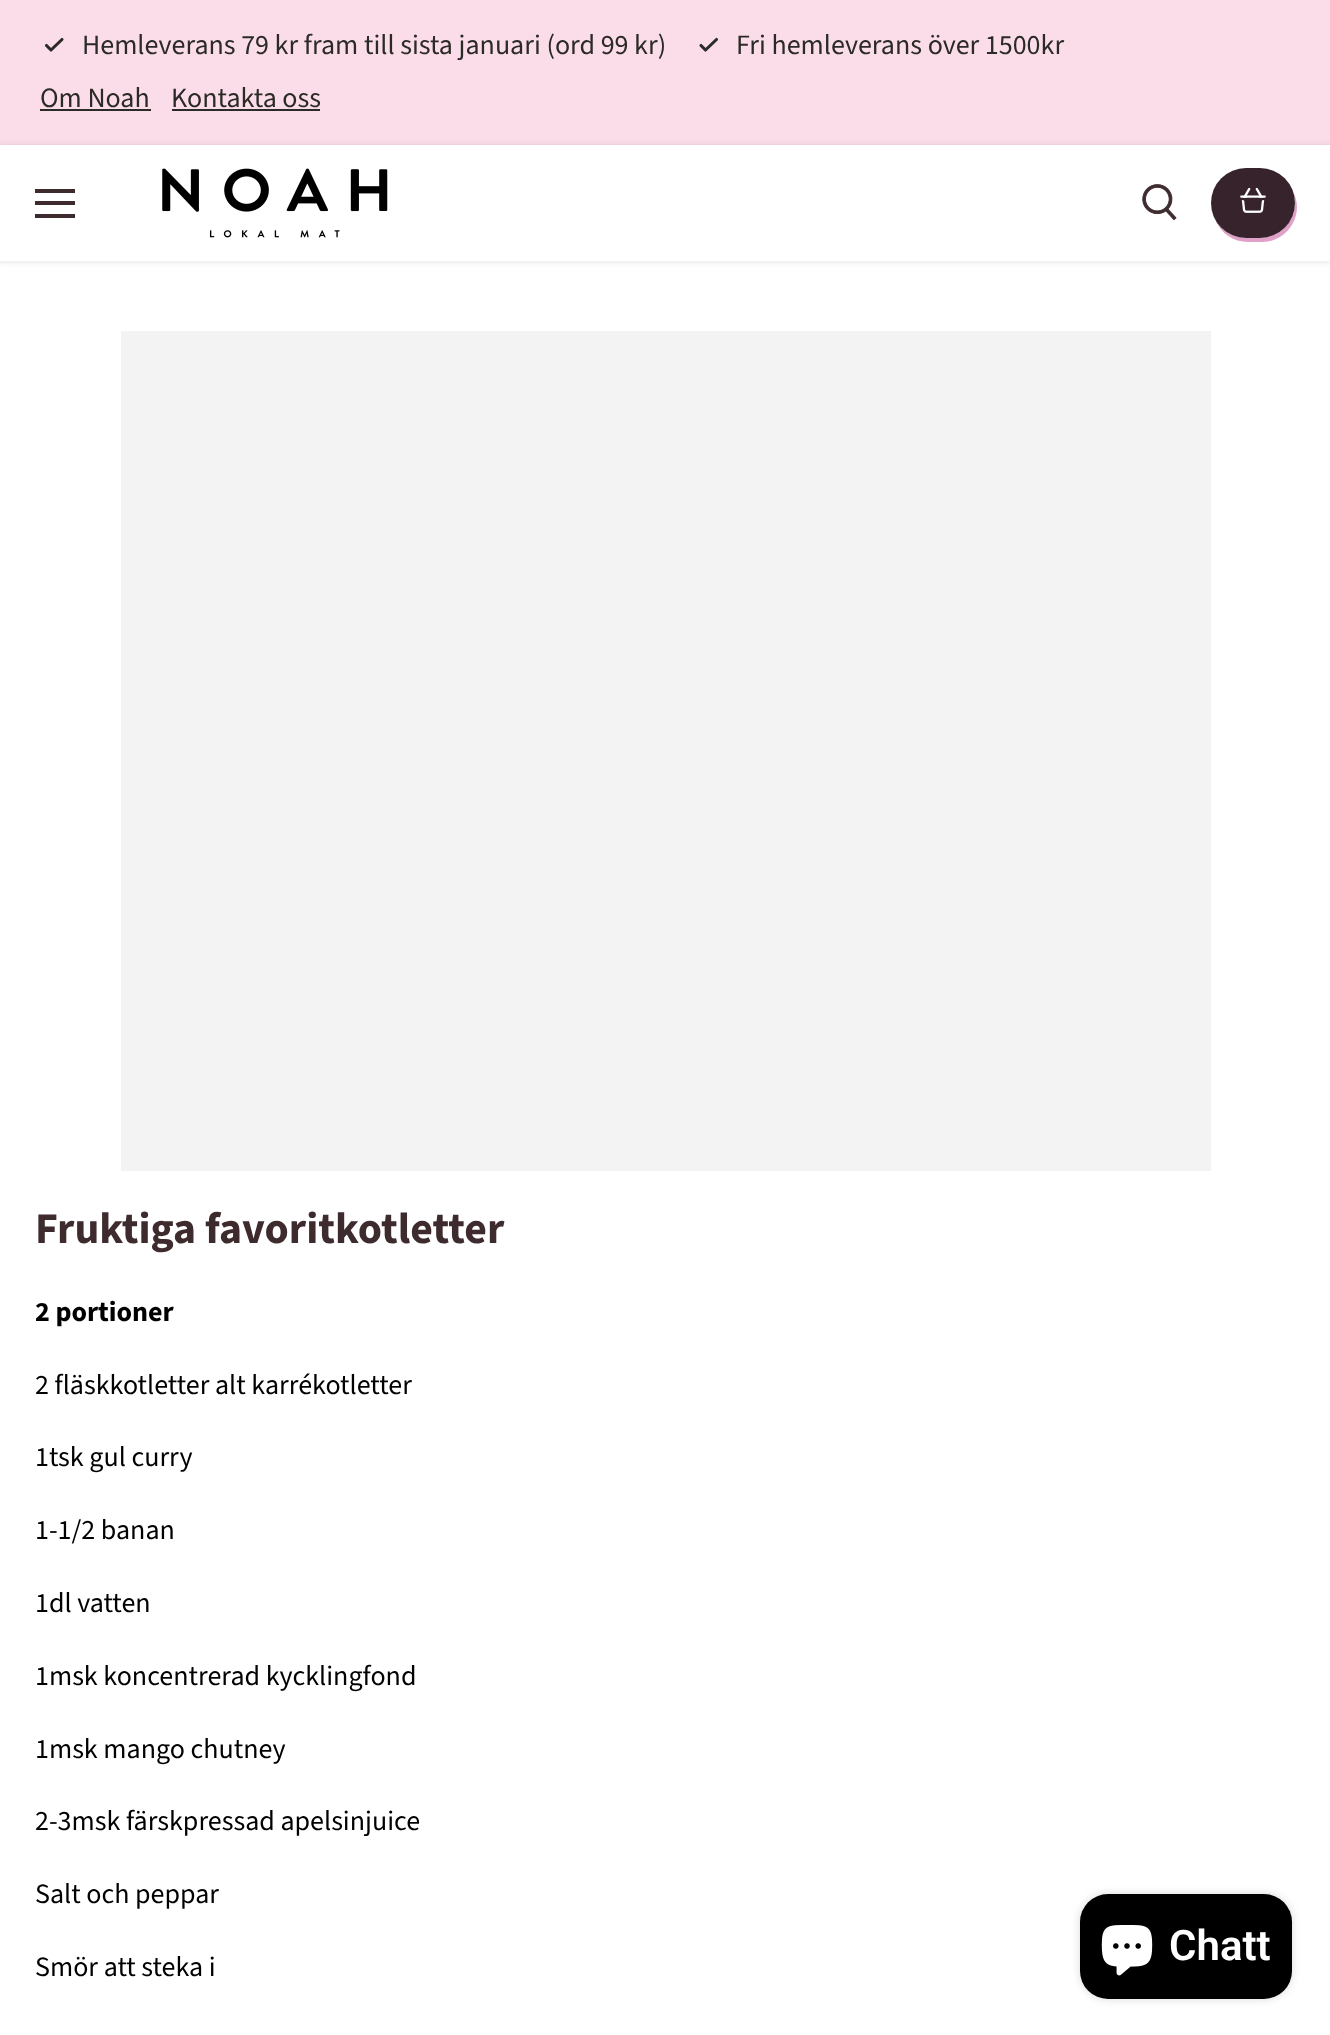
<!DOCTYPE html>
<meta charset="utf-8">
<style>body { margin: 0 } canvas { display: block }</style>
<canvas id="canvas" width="1330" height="2035"></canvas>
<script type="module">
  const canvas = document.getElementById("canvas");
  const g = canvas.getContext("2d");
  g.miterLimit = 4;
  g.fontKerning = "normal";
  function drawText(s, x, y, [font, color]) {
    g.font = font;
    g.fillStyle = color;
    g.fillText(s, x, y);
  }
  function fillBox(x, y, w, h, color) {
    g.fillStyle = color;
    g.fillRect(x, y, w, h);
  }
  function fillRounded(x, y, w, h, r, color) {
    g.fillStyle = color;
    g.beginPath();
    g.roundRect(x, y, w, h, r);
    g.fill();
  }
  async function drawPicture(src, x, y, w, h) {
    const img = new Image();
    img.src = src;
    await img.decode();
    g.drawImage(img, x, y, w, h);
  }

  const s1 = ["28px Source Sans Pro", "#2B2A26"];
  const s2 = ["bold 43.75px Source Sans Pro", "#3E2B2E"];
  const s3 = ["bold 28px Source Sans Pro", "#000000"];
  const s4 = ["28px Source Sans Pro", "#000000"];
  const s5 = ["600 42px Roboto", "#FFFFFF"];

  fillBox(0, 0, 1330, 2035, "#FFFFFF");
  fillBox(0, 0, 1330, 145, "#FBDDEA");
  g.beginPath();
  g.moveTo(46.5, 45.5);
  g.lineTo(51, 50);
  g.lineTo(62, 39.5);
  g.strokeStyle = "#2B2A26";
  g.lineWidth = 3.1;
  g.lineCap = "round";
  g.lineJoin = "round";
  g.stroke();
  drawText("Hemleverans 79 kr fram till sista januari (ord 99 kr)", 82, 54, s1);
  g.beginPath();
  g.moveTo(701, 45.5);
  g.lineTo(705.5, 50);
  g.lineTo(716.5, 39.5);
  g.stroke();
  drawText("Fri hemleverans över 1500kr", 736, 54, s1);
  drawText("Om Noah", 40, 107, s1);
  fillBox(40, 109, 111, 2, "#2B2A26");
  drawText("Kontakta oss", 171, 107, s1);
  fillBox(172, 109, 148, 2, "#2B2A26");
  g.fillStyle = "rgba(0, 0, 0, 0.08)";
  g.filter = "blur(2.5px)";
  g.beginPath();
  g.rect(-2, 144, 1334, 119);
  g.fill();
  g.filter = "none";
  fillBox(0, 145, 1330, 116, "#FFFFFF");
  fillBox(35, 189, 40, 4, "#3E2B2E");
  fillBox(35, 201, 40, 4, "#3E2B2E");
  fillBox(35, 214, 40, 4, "#3E2B2E");
  await drawPicture("pic1.png", 162, 168, 226, 70);
  await drawPicture("pic2.png", 1142, 184, 35, 37);
  g.fillStyle = "#E1A0C7";
  g.beginPath();
  g.moveTo(1216, 221);
  g.bezierCurveTo(1221, 233, 1233, 242, 1248, 242);
  g.lineTo(1262, 242);
  g.bezierCurveTo(1281, 242, 1297, 226, 1297, 207);
  g.bezierCurveTo(1297, 201, 1295, 195, 1292, 189);
  g.bezierCurveTo(1300, 207, 1291, 228, 1274, 235);
  g.bezierCurveTo(1264, 239, 1242, 239, 1232, 235);
  g.bezierCurveTo(1225, 232, 1220, 227, 1216, 221);
  g.closePath();
  g.fill();
  fillRounded(1211, 168, 84, 70, 35, "#36232C");
  await drawPicture("pic3.png", 1240, 187, 26, 26);
  fillBox(121, 331, 1090, 840, "#F3F3F3");
  drawText("Fruktiga favoritkotletter", 35, 1243, s2);
  drawText("2 portioner", 35, 1321, s3);
  drawText("2 fläskkotletter alt karrékotletter", 35, 1394, s4);
  drawText("1tsk gul curry", 35, 1466, s4);
  drawText("1-1/2 banan", 35, 1539, s4);
  drawText("1dl vatten", 35, 1612, s4);
  drawText("1msk koncentrerad kycklingfond", 35, 1685, s4);
  drawText("1msk mango chutney", 35, 1758, s4);
  drawText("2-3msk färskpressad apelsinjuice", 35, 1830, s4);
  drawText("Salt och peppar", 35, 1903, s4);
  drawText("Smör att steka i", 35, 1976, s4);
  g.fillStyle = "rgba(0, 0, 0, 0.15)";
  g.filter = "blur(4.5px)";
  g.beginPath();
  g.roundRect(1080, 1894, 212, 105, 28);
  g.fill();
  g.filter = "none";
  fillRounded(1080, 1894, 212, 105, 28, "#000000");
  await drawPicture("pic4.png", 1101, 1925, 52, 51);
  drawText("Chatt", 1169, 1960, s5);
</script>
